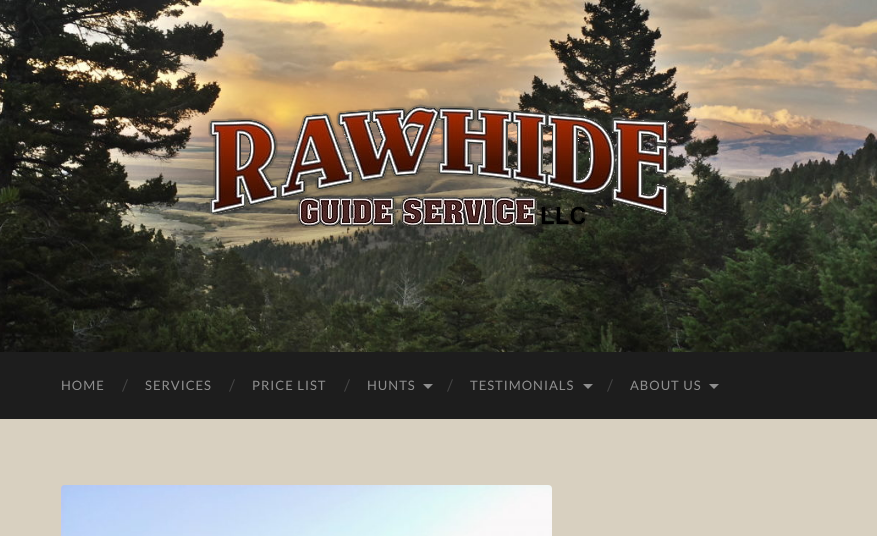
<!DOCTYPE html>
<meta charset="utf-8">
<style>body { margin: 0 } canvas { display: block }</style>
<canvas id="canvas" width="877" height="536"></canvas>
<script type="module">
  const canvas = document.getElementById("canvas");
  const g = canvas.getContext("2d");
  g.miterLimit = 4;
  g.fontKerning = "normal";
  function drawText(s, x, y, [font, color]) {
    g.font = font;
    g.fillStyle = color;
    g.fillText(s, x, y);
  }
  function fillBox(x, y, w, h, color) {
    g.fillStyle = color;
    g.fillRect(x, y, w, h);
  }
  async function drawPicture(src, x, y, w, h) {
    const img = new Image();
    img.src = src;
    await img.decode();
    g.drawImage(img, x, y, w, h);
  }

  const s1 = ["13px Lato", "#8E8E8E"];
  const s2 = ["16px Lato", "#444444"];

  fillBox(0, 0, 877, 536, "#D8D0C0");
  await drawPicture("pic1.png", 0, 0, 877, 352);
  await drawPicture("pic2.png", 208, 104, 463, 124);
  fillBox(0, 352, 877, 67, "#1D1D1D");
  g.letterSpacing = "1px";
  drawText("HOME", 61, 390, s1);
  g.letterSpacing = "0px";
  drawText("/", 122, 391, s2);
  g.letterSpacing = "1px";
  drawText("SERVICES", 145, 390, s1);
  g.letterSpacing = "0px";
  drawText("/", 229, 391, s2);
  g.letterSpacing = "1px";
  drawText("PRICE LIST", 252, 390, s1);
  g.letterSpacing = "0px";
  drawText("/", 344, 391, s2);
  g.letterSpacing = "1px";
  drawText("HUNTS", 367, 390, s1);
  g.beginPath();
  g.moveTo(423, 384);
  g.lineTo(433, 384);
  g.lineTo(428, 389);
  g.closePath();
  g.fill();
  g.letterSpacing = "0px";
  drawText("/", 447, 391, s2);
  g.letterSpacing = "1px";
  drawText("TESTIMONIALS", 470, 390, s1);
  g.beginPath();
  g.moveTo(583, 384);
  g.lineTo(593, 384);
  g.lineTo(588, 389);
  g.closePath();
  g.fill();
  g.letterSpacing = "0px";
  drawText("/", 607, 391, s2);
  g.letterSpacing = "1px";
  drawText("ABOUT US", 630, 390, s1);
  g.beginPath();
  g.moveTo(709, 384);
  g.lineTo(719, 384);
  g.lineTo(714, 389);
  g.closePath();
  g.fill();
  await drawPicture("pic3.png", 61, 485, 491, 51);
</script>
